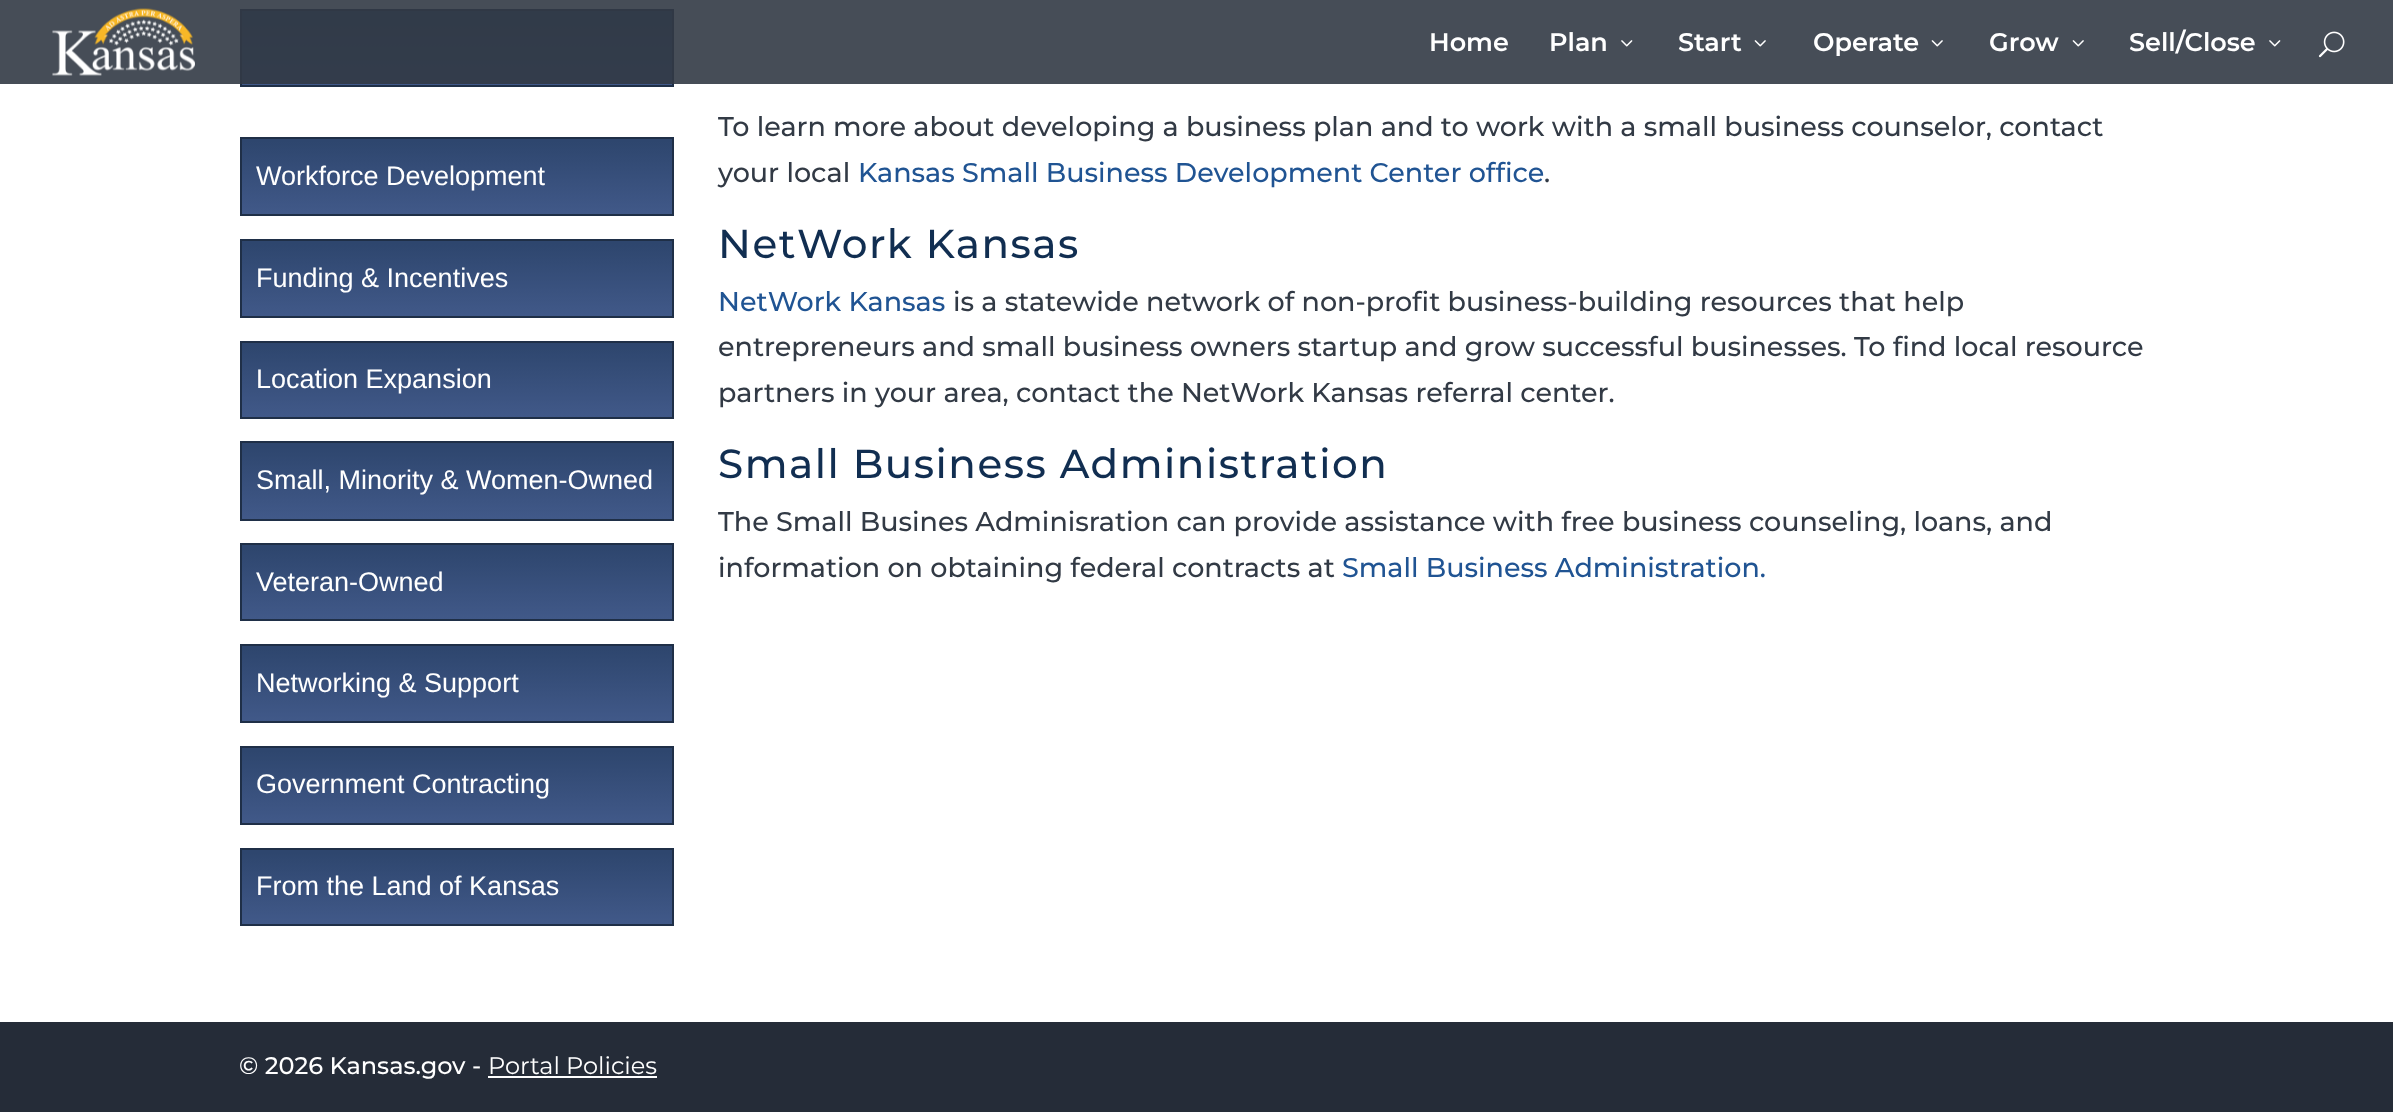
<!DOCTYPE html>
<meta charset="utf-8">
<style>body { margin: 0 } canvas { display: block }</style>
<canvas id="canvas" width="2393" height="1112"></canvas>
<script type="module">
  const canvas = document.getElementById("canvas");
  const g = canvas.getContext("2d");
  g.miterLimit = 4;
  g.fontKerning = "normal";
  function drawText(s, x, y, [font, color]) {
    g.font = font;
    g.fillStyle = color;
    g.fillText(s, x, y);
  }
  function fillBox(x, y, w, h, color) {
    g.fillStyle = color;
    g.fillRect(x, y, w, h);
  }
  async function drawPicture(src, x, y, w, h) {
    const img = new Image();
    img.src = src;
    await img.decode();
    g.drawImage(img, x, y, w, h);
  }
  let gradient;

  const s1 = ["600 25.5px Montserrat", "#FFFFFF"];
  const s2 = ["27px Liberation Sans", "#FFFFFF"];
  const s3 = ["500 27px Montserrat", "#323A45"];
  const s4 = ["500 27px Montserrat", "#205493"];
  const s5 = ["500 40.5px Montserrat", "#112E51"];
  const s6 = ["500 24px Montserrat", "#FFFFFF"];
  const s7 = ["24px Montserrat", "#FFFFFF"];

  fillBox(0, 0, 2393, 1112, "#FFFFFF");
  gradient = g.createLinearGradient(457, 10, 457, 86);
  gradient.addColorStop(0.05, "#2E466E");
  gradient.addColorStop(1, "#415989");
  g.fillStyle = gradient;
  g.fillRect(242, 11, 430, 74);
  g.strokeStyle = "#1F2F47";
  g.lineWidth = 2;
  g.strokeRect(241, 10, 432, 76);
  fillBox(0, 0, 2393, 84, "rgba(50, 58, 69, 0.9)");
  await drawPicture("pic1.png", 52, 8, 143, 68);
  drawText("Home", 1429, 51, s1);
  drawText("Plan", 1549, 51, s1);
  await drawPicture("pic2.png", 1621, 40, 12, 7);
  drawText("Start", 1678, 51, s1);
  await drawPicture("pic3.png", 1754, 40, 12, 7);
  drawText("Operate", 1813, 51, s1);
  await drawPicture("pic3.png", 1931, 40, 12, 7);
  drawText("Grow", 1989, 51, s1);
  await drawPicture("pic3.png", 2072, 40, 12, 7);
  drawText("Sell/Close", 2129, 51, s1);
  await drawPicture("pic2.png", 2269, 40, 12, 7);
  await drawPicture("pic4.png", 2318, 31, 27, 27);
  gradient = g.createLinearGradient(457, 138, 457, 215);
  gradient.addColorStop(0.05, "#2E466E");
  gradient.addColorStop(1, "#415989");
  g.fillStyle = gradient;
  g.fillRect(242, 139, 430, 75);
  g.strokeRect(241, 138, 432, 77);
  drawText("Workforce Development", 256, 185, s2);
  gradient = g.createLinearGradient(457, 240, 457, 317);
  gradient.addColorStop(0.05, "#2E466E");
  gradient.addColorStop(1, "#415989");
  g.fillStyle = gradient;
  g.fillRect(242, 241, 430, 75);
  g.strokeRect(241, 240, 432, 77);
  drawText("Funding & Incentives", 256, 287, s2);
  gradient = g.createLinearGradient(457, 342, 457, 417);
  gradient.addColorStop(0.05, "#2E466E");
  gradient.addColorStop(1, "#415989");
  g.fillStyle = gradient;
  g.fillRect(242, 343, 430, 74);
  g.strokeRect(241, 342, 432, 76);
  drawText("Location Expansion", 256, 388, s2);
  gradient = g.createLinearGradient(457, 443, 457, 519);
  gradient.addColorStop(0.05, "#2E466E");
  gradient.addColorStop(1, "#415989");
  g.fillStyle = gradient;
  g.fillRect(242, 443, 430, 76);
  g.strokeRect(241, 442, 432, 78);
  drawText("Small, Minority & Women-Owned", 256, 489, s2);
  gradient = g.createLinearGradient(457, 545, 457, 620);
  gradient.addColorStop(0.05, "#2E466E");
  gradient.addColorStop(1, "#415989");
  g.fillStyle = gradient;
  g.fillRect(242, 545, 430, 74);
  g.strokeRect(241, 544, 432, 76);
  drawText("Veteran-Owned", 256, 591, s2);
  gradient = g.createLinearGradient(457, 645, 457, 722);
  gradient.addColorStop(0.05, "#2E466E");
  gradient.addColorStop(1, "#415989");
  g.fillStyle = gradient;
  g.fillRect(242, 646, 430, 75);
  g.strokeRect(241, 645, 432, 77);
  drawText("Networking & Support", 256, 692, s2);
  gradient = g.createLinearGradient(457, 747, 457, 824);
  gradient.addColorStop(0.05, "#2E466E");
  gradient.addColorStop(1, "#415989");
  g.fillStyle = gradient;
  g.fillRect(242, 748, 430, 75);
  g.strokeRect(241, 747, 432, 77);
  drawText("Government Contracting", 256, 793, s2);
  gradient = g.createLinearGradient(457, 849, 457, 924);
  gradient.addColorStop(0.05, "#2E466E");
  gradient.addColorStop(1, "#415989");
  g.fillStyle = gradient;
  g.fillRect(242, 850, 430, 74);
  g.strokeRect(241, 849, 432, 76);
  drawText("From the Land of Kansas", 256, 895, s2);
  drawText("To learn more about developing a business plan and to work with a small business counselor, contact", 718, 136, s3);
  drawText("your local", 718, 182, s3);
  drawText("Kansas Small Business Development Center office", 858, 182, s4);
  drawText(".", 1544, 182, s3);
  g.letterSpacing = "1.5px";
  drawText("NetWork Kansas", 718, 258, s5);
  g.letterSpacing = "0px";
  drawText("NetWork Kansas", 718, 311, s4);
  drawText("is a statewide network of non-profit business-building resources that help", 953, 311, s3);
  drawText("entrepreneurs and small business owners startup and grow successful businesses. To find local resource", 718, 356, s3);
  drawText("partners in your area, contact the NetWork Kansas referral center.", 718, 402, s3);
  g.letterSpacing = "1.5px";
  drawText("Small Business Administration", 718, 478, s5);
  g.letterSpacing = "0px";
  drawText("The Small Busines Adminisration can provide assistance with free business counseling, loans, and", 718, 531, s3);
  drawText("information on obtaining federal contracts at", 718, 577, s3);
  drawText("Small Business Administration.", 1342, 577, s4);
  fillBox(0, 1022, 2393, 90, "#252C38");
  drawText("© 2026 Kansas.gov -", 239, 1074, s6);
  drawText("Portal Policies", 488, 1074, s7);
  fillBox(488, 1076, 169, 2, "#FFFFFF");
</script>
